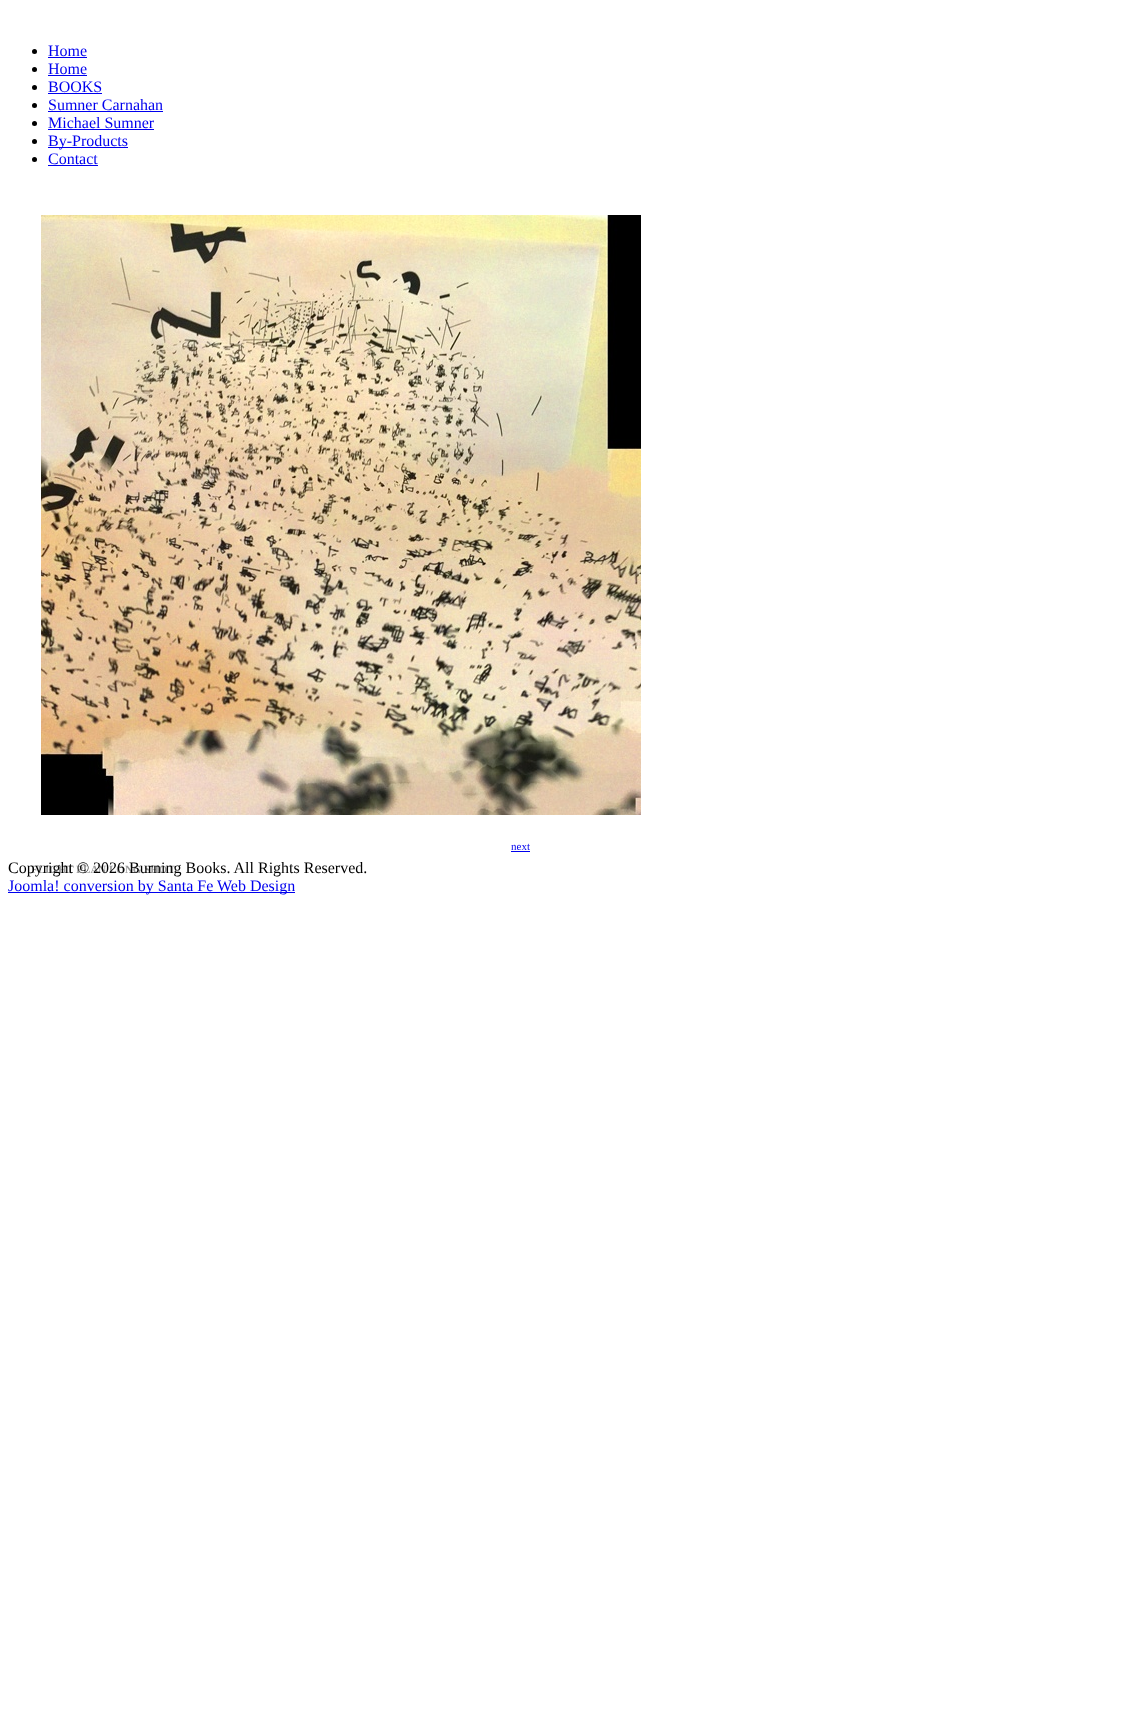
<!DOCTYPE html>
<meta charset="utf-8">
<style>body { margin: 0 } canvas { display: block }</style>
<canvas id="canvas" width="1141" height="1711"></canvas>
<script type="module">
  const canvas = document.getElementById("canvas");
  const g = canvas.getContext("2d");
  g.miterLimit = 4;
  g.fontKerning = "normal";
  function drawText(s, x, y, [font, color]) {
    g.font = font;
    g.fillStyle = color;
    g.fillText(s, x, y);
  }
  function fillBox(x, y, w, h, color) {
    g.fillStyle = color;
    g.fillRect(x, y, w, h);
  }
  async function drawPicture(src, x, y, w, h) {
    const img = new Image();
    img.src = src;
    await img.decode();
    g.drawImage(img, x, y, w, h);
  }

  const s1 = ["16px Liberation Serif", "#0000EE"];
  const s2 = ["11px Liberation Serif", "#0000EE"];
  const s3 = ["bold 11px Liberation Serif", "#999999"];
  const s4 = ["16px Liberation Serif", "#000000"];

  fillBox(0, 0, 1141, 1711, "#FFFFFF");
  g.fillStyle = "#000000";
  g.beginPath();
  g.arc(34.5, 51.5, 2.5, 0, Math.PI * 2);
  g.fill();
  drawText("Home", 48, 56, s1);
  fillBox(48, 57, 39, 1, "#0000EE");
  g.fillStyle = "#000000";
  g.beginPath();
  g.arc(34.5, 69.5, 2.5, 0, Math.PI * 2);
  g.fill();
  drawText("Home", 48, 74, s1);
  fillBox(48, 75, 39, 1, "#0000EE");
  g.fillStyle = "#000000";
  g.beginPath();
  g.arc(34.5, 87.5, 2.5, 0, Math.PI * 2);
  g.fill();
  drawText("BOOKS", 48, 92, s1);
  fillBox(48, 93, 54, 1, "#0000EE");
  g.fillStyle = "#000000";
  g.beginPath();
  g.arc(34.5, 105.5, 2.5, 0, Math.PI * 2);
  g.fill();
  drawText("Sumner Carnahan", 48, 110, s1);
  fillBox(48, 111, 115, 1, "#0000EE");
  g.fillStyle = "#000000";
  g.beginPath();
  g.arc(34.5, 123.5, 2.5, 0, Math.PI * 2);
  g.fill();
  drawText("Michael Sumner", 48, 128, s1);
  fillBox(48, 129, 106, 1, "#0000EE");
  g.fillStyle = "#000000";
  g.beginPath();
  g.arc(34.5, 141.5, 2.5, 0, Math.PI * 2);
  g.fill();
  fillBox(48, 147, 80, 1, "#0000EE");
  drawText("By-Products", 48, 146, s1);
  g.fillStyle = "#000000";
  g.beginPath();
  g.arc(34.5, 159.5, 2.5, 0, Math.PI * 2);
  g.fill();
  drawText("Contact", 48, 164, s1);
  fillBox(48, 165, 50, 1, "#0000EE");
  await drawPicture("pic1.png", 41, 215, 600, 600);
  drawText("next", 511, 850, s2);
  fillBox(511, 851, 19, 1, "#0000EE");
  drawText("FLIGHT PLAN LONG SHOT", 31, 873, s3);
  drawText("Copyright © 2026 Burning Books. All Rights Reserved.", 8, 873, s4);
  fillBox(8, 892, 287, 1, "#0000EE");
  drawText("Joomla! conversion by Santa Fe Web Design", 8, 891, s1);
</script>
